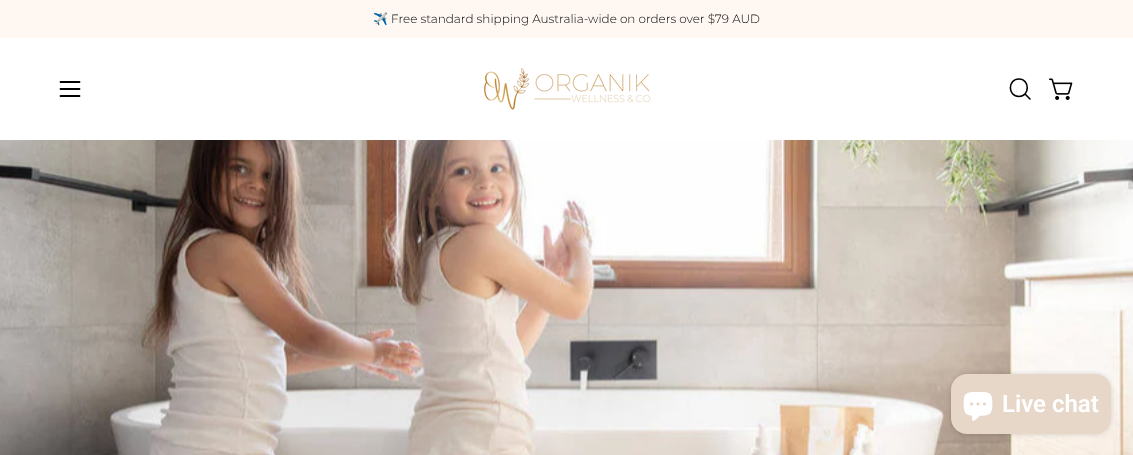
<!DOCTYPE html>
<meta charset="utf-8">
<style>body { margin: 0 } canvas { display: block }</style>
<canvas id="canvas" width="1133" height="455"></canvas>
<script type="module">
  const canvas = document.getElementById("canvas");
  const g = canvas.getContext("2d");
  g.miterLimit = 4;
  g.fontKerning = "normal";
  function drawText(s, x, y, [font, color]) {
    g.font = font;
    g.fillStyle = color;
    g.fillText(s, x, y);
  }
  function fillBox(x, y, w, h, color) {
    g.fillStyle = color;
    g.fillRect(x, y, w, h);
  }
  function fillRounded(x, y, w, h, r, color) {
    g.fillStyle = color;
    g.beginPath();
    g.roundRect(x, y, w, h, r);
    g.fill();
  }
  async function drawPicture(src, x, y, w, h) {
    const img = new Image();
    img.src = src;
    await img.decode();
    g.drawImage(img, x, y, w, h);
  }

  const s1 = ["12px Noto Color Emoji", "#000000"];
  const s2 = ["300 12px Montserrat", "#000000"];
  const s3 = ["600 24px Roboto", "#FFFFFF"];

  fillBox(0, 0, 1133, 455, "#FFFFFF");
  fillBox(0, 0, 1133, 38, "#FFF7F2");
  drawText("✈️", 373, 23, s1);
  drawText("Free standard shipping Australia-wide on orders over $79 AUD", 391, 23, s2);
  g.beginPath();
  g.moveTo(60.5, 89);
  g.lineTo(79.5, 89);
  g.moveTo(60.5, 82);
  g.lineTo(79.5, 82);
  g.moveTo(60.5, 96);
  g.lineTo(79.5, 96);
  g.strokeStyle = "#000000";
  g.lineWidth = 1.8;
  g.lineCap = "round";
  g.lineJoin = "round";
  g.stroke();
  await drawPicture("pic1.png", 484, 68, 168, 42);
  g.beginPath();
  g.moveTo(1019, 96.5);
  g.bezierCurveTo(1030, 96.5, 1030, 79, 1019, 79);
  g.bezierCurveTo(1007.5, 79, 1007.5, 96.5, 1019, 96.5);
  g.closePath();
  g.moveTo(1025, 94);
  g.lineTo(1030, 99);
  g.lineWidth = 1.6;
  g.stroke();
  await drawPicture("pic2.png", 1049, 78, 24, 22);
  await drawPicture("pic3.png", 0, 140, 1133, 315);
  g.fillStyle = "rgba(0, 0, 0, 0.15)";
  g.filter = "blur(2.5px)";
  g.beginPath();
  g.roundRect(951, 374, 160, 60, 16);
  g.fill();
  g.filter = "none";
  fillRounded(951, 374, 160, 60, 16, "#E7D7C9");
  await drawPicture("pic4.png", 963, 392, 30, 29);
  drawText("Live chat", 1002, 412, s3);
</script>
